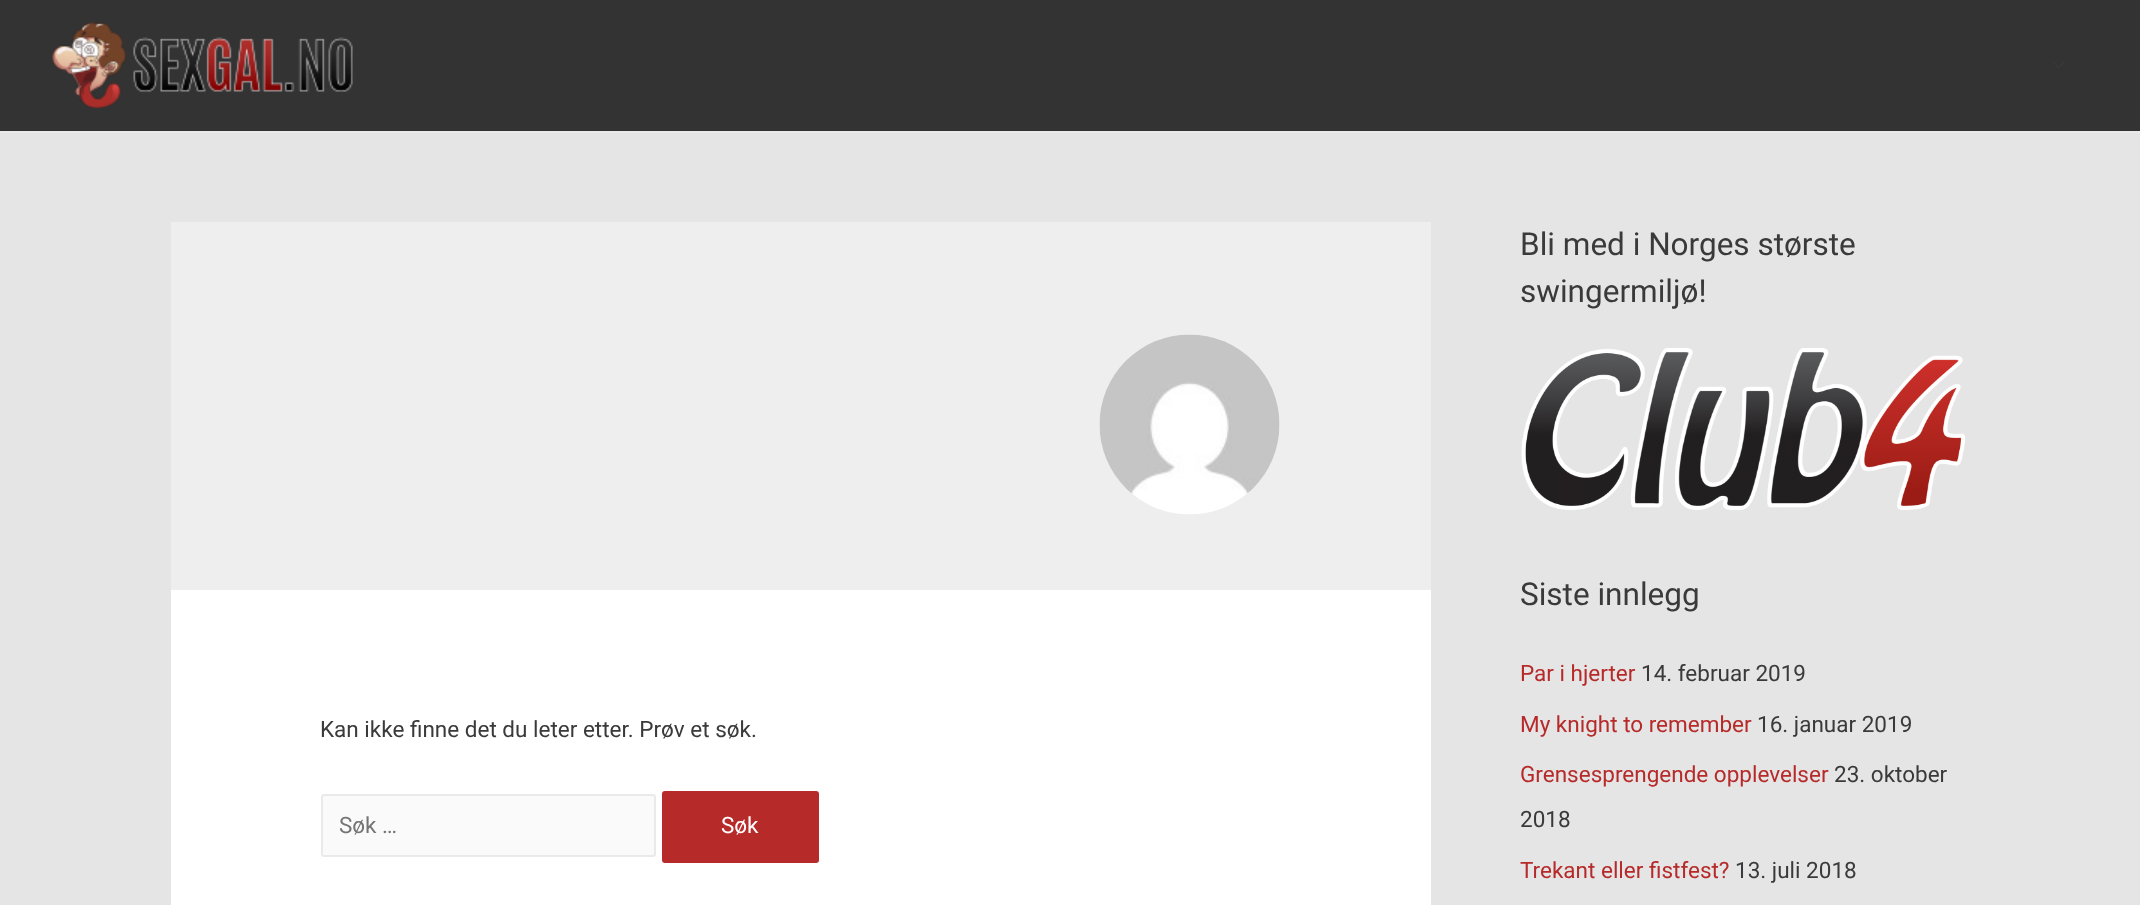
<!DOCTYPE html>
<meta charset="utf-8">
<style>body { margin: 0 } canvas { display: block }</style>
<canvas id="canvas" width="2140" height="905"></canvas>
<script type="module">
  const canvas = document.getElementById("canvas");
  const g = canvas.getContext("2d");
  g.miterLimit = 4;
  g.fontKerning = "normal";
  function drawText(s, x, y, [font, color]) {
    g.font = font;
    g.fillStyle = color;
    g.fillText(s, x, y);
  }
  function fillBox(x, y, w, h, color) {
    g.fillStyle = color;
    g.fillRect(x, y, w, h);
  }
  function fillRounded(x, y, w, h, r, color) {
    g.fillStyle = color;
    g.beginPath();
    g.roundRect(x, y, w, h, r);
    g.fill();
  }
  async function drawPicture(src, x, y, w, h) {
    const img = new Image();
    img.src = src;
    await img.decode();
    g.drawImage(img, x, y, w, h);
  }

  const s1 = ["22.5px Roboto", "#3A3A3A"];
  const s2 = ["22.5px Roboto", "#757575"];
  const s3 = ["22.5px Roboto", "#FFFFFF"];
  const s4 = ["31.5px Roboto", "#3A3A3A"];
  const s5 = ["22.5px Roboto", "#B72A2A"];

  fillBox(0, 0, 2140, 905, "#E5E5E5");
  fillBox(0, 0, 2140, 131, "#333333");
  fillBox(0, 131, 2140, 2, "#EAEAEA");
  await drawPicture("pic1.png", 52, 22, 301, 86);
  await drawPicture("pic2.png", 2053, 62, 11, 6);
  fillBox(171, 222, 1260, 368, "#EEEEEE");
  await drawPicture("pic3.png", 1099, 334, 181, 181);
  fillBox(171, 590, 1260, 315, "#FFFFFF");
  drawText("Kan ikke finne det du leter etter. Prøv et søk.", 320, 737, s1);
  g.fillStyle = "#FAFAFA";
  g.beginPath();
  g.roundRect(322, 795, 333, 61, 2);
  g.fill();
  g.strokeStyle = "#EAEAEA";
  g.lineWidth = 2;
  g.stroke();
  drawText("Søk …", 339, 833, s2);
  fillRounded(662, 791, 157, 72, 3, "#B72A2A");
  drawText("Søk", 721, 833, s3);
  drawText("Bli med i Norges største", 1520, 255, s4);
  drawText("swingermiljø!", 1520, 302, s4);
  await drawPicture("pic4.png", 1521, 348, 445, 162);
  drawText("Siste innlegg", 1520, 605, s4);
  drawText("Par i hjerter", 1520, 681, s5);
  drawText("14. februar 2019", 1641, 681, s1);
  drawText("My knight to remember", 1520, 732, s5);
  drawText("16. januar 2019", 1757, 732, s1);
  drawText("Grensesprengende opplevelser", 1520, 782, s5);
  drawText("23. oktober", 1834, 782, s1);
  drawText("2018", 1520, 827, s1);
  drawText("Trekant eller fistfest?", 1520, 878, s5);
  drawText("13. juli 2018", 1735, 878, s1);
</script>
